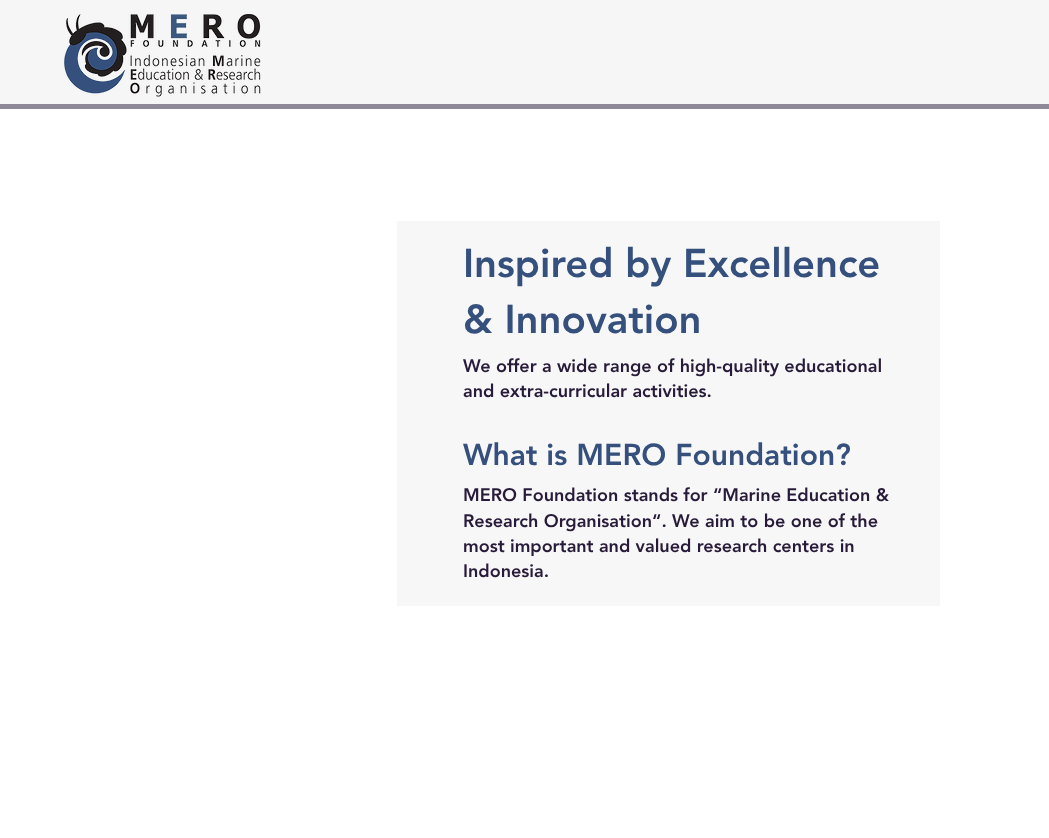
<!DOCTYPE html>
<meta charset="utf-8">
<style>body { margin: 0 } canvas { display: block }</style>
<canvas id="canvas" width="1049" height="838"></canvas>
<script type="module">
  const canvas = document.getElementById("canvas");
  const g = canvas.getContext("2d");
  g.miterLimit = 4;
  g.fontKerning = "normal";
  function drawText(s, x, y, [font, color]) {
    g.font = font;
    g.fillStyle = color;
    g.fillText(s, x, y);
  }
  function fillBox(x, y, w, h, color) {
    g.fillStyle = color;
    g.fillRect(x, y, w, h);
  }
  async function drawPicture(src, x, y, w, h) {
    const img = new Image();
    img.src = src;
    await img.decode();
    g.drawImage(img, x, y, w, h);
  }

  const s1 = ["900 40px 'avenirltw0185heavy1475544'", "#36507D"];
  const s2 = ["900 18px 'avenirltw0185heavy1475544'", "#281A39"];
  const s3 = ["900 30px 'avenirltw0185heavy1475544'", "#36507D"];

  fillBox(0, 0, 1049, 838, "#FFFFFF");
  fillBox(0, 0, 1049, 104, "#F6F6F6");
  fillBox(0, 104, 1049, 5, "#8F8898");
  await drawPicture("pic1.png", 64, 14, 197, 83);
  fillBox(397, 221, 543, 385, "#F7F7F7");
  drawText("Inspired by Excellence", 463, 277, s1);
  drawText("& Innovation", 463, 333, s1);
  drawText("We offer a wide range of high-quality educational", 463, 372, s2);
  drawText("and extra-curricular activities.", 463, 397, s2);
  drawText("What is MERO Foundation?", 463, 465, s3);
  drawText("MERO Foundation stands for “Marine Education &", 463, 501, s2);
  drawText("Research Organisation“. We aim to be one of the", 463, 527, s2);
  drawText("most important and valued research centers in", 463, 552, s2);
  drawText("Indonesia.", 463, 577, s2);
</script>
